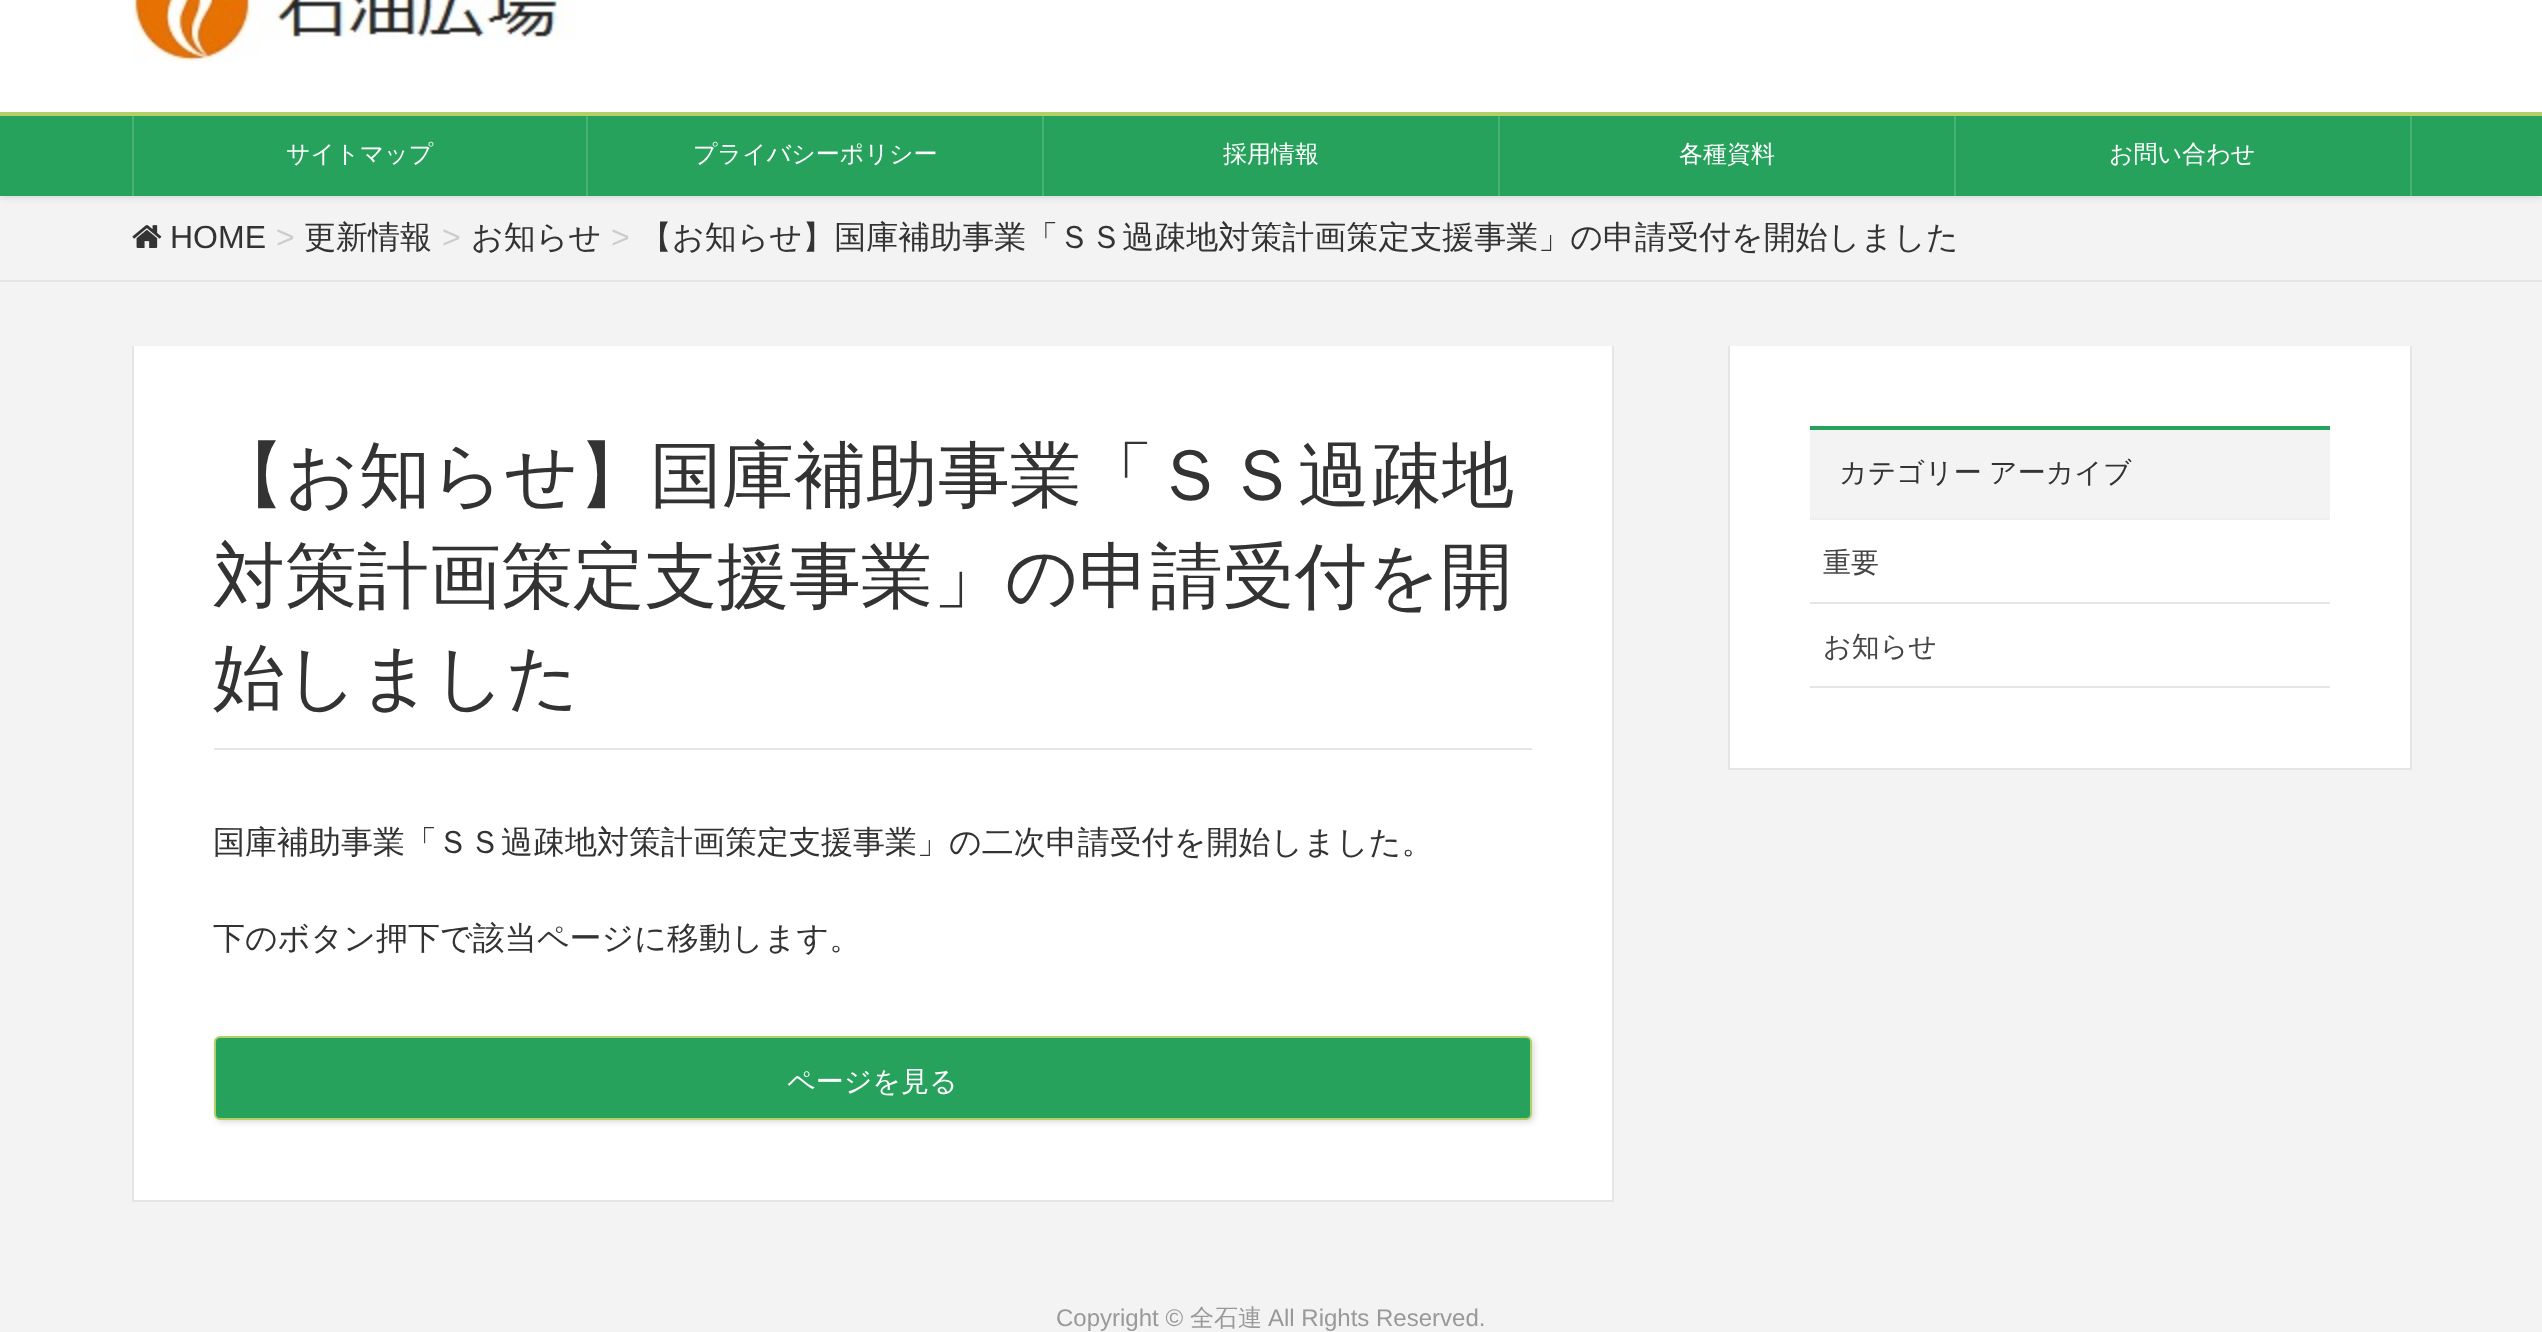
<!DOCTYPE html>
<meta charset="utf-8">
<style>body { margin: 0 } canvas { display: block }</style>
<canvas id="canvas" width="2542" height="1332"></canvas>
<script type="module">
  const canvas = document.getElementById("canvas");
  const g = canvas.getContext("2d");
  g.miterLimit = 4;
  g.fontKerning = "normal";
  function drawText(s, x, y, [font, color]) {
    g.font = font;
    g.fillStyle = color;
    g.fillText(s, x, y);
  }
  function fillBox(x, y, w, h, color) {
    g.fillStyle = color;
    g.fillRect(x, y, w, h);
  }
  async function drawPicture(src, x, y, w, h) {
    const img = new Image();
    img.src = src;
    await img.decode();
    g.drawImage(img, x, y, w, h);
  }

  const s1 = ["500 24px WenQuanYi Zen Hei", "#FFFFFF"];
  const s2 = ["32px Liberation Sans", "#333333"];
  const s3 = ["32px Liberation Sans", "#CCCCCC"];
  const s4 = ["500 32px WenQuanYi Zen Hei", "#333333"];
  const s5 = ["500 72px WenQuanYi Zen Hei", "#333333"];
  const s6 = ["500 28px WenQuanYi Zen Hei", "#FFFFFF"];
  const s7 = ["500 28px WenQuanYi Zen Hei", "#333333"];
  const s8 = ["500 28px WenQuanYi Zen Hei", "#464646"];
  const s9 = ["24px Liberation Sans", "#999999"];
  const s10 = ["500 24px WenQuanYi Zen Hei", "#999999"];

  fillBox(0, 0, 2542, 1332, "#F3F3F3");
  g.fillStyle = "rgba(0, 0, 0, 0.1)";
  g.filter = "blur(3px)";
  g.beginPath();
  g.rect(0, -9, 2542, 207);
  g.fill();
  g.filter = "none";
  fillBox(0, 0, 2542, 112, "#FFFFFF");
  await drawPicture("pic1.png", 132, 0, 445, 62);
  fillBox(0, 116, 2542, 80, "#27A25D");
  fillBox(0, 112, 2542, 4, "#B5CF67");
  fillBox(132, 116, 2, 80, "#47B075");
  drawText("サイトマップ", 286, 162, s1);
  fillBox(586, 116, 2, 80, "#47B075");
  drawText("プライバシーポリシー", 693, 162, s1);
  fillBox(1042, 116, 2, 80, "#47B075");
  drawText("採用情報", 1223, 162, s1);
  fillBox(1498, 116, 2, 80, "#47B075");
  drawText("各種資料", 1679, 162, s1);
  fillBox(2410, 116, 2, 80, "#47B075");
  fillBox(1954, 116, 2, 80, "#47B075");
  drawText("お問い合わせ", 2109, 162, s1);
  fillBox(0, 280, 2542, 2, "#E5E5E5");
  await drawPicture("pic2.png", 132, 225, 30, 23);
  drawText("HOME", 170, 248, s2);
  drawText(">", 276, 248, s3);
  drawText("更新情報", 304, 248, s4);
  drawText(">", 442, 248, s3);
  drawText("お知らせ", 471, 248, s4);
  drawText(">", 611, 248, s3);
  drawText("【お知らせ】国庫補助事業「ＳＳ過疎地対策計画策定支援事業」の申請受付を開始しました", 640, 248, s4);
  fillBox(134, 346, 1478, 854, "#FFFFFF");
  fillBox(1612, 346, 2, 856, "#E5E5E5");
  fillBox(132, 1200, 1482, 2, "#E5E5E5");
  fillBox(132, 346, 2, 856, "#E5E5E5");
  fillBox(214, 748, 1318, 2, "#E5E5E5");
  drawText("【お知らせ】国庫補助事業「ＳＳ過疎地", 213, 500, s5);
  drawText("対策計画策定支援事業」の申請受付を開", 213, 601, s5);
  drawText("始しました", 213, 702, s5);
  drawText("国庫補助事業「ＳＳ過疎地対策計画策定支援事業」の二次申請受付を開始しました。", 213, 853, s4);
  drawText("下のボタン押下で該当ページに移動します。", 213, 949, s4);
  g.fillStyle = "rgba(0, 0, 0, 0.15)";
  g.filter = "blur(3px)";
  g.beginPath();
  g.roundRect(216, 1038, 1318, 84, 6);
  g.fill();
  g.filter = "none";
  g.fillStyle = "#27A25D";
  g.beginPath();
  g.roundRect(215, 1037, 1316, 82, 5);
  g.fill();
  g.strokeStyle = "#B5CF67";
  g.lineWidth = 2;
  g.stroke();
  drawText("ページを見る", 787, 1091, s6);
  fillBox(1730, 346, 680, 422, "#FFFFFF");
  fillBox(2410, 346, 2, 424, "#E5E5E5");
  fillBox(1728, 768, 684, 2, "#E5E5E5");
  fillBox(1728, 346, 2, 424, "#E5E5E5");
  fillBox(1810, 430, 520, 88, "#F3F3F3");
  fillBox(1810, 426, 520, 4, "#27A25D");
  fillBox(1810, 518, 520, 2, "#EFEFEF");
  g.wordSpacing = "-1px";
  drawText("カテゴリー アーカイブ", 1839, 482, s7);
  fillBox(1810, 602, 520, 2, "#E5E5E5");
  g.wordSpacing = "0px";
  drawText("重要", 1823, 572, s8);
  fillBox(1810, 686, 520, 2, "#E5E5E5");
  drawText("お知らせ", 1823, 656, s8);
  drawText("Copyright ©", 1056, 1326, s9);
  drawText("全石連", 1190, 1326, s10);
  drawText("All Rights Reserved.", 1268, 1326, s9);
</script>
